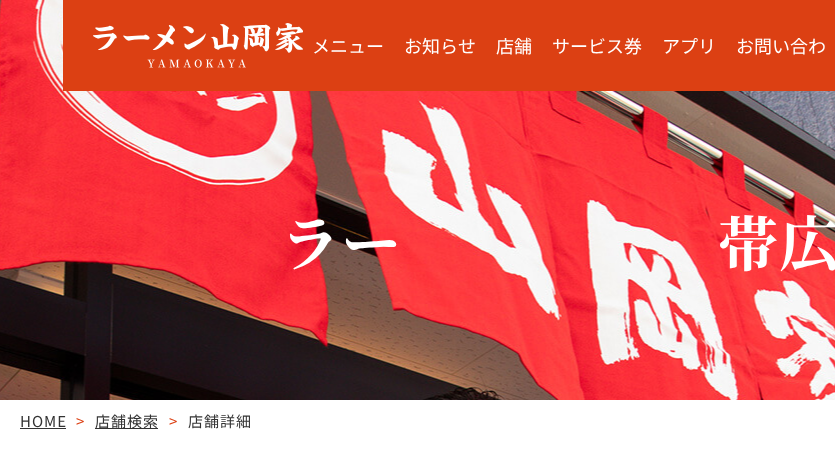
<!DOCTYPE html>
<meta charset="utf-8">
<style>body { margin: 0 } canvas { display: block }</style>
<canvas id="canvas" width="835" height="474"></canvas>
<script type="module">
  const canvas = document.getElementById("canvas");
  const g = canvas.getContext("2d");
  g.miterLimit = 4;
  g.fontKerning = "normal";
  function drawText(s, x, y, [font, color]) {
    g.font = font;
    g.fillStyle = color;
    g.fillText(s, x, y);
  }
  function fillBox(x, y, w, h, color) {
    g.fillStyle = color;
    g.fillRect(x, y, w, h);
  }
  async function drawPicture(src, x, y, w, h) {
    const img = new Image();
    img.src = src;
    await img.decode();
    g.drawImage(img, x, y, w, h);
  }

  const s1 = ["18px Noto Sans JP", "#FFFFFF"];
  const s2 = ["bold 60px Noto Serif JP", "#FFFFFF"];
  const s3 = ["15px Noto Sans JP", "#333333"];
  const s4 = ["15px Noto Sans JP", "#DC4013"];

  fillBox(0, 0, 835, 474, "#FFFFFF");
  await drawPicture("pic2.png", 0, 0, 835, 400);
  fillBox(63, 0, 772, 91, "#DC4013");
  await drawPicture("pic1.png", 93, 23, 210, 45);
  drawText("メニュー", 312, 53, s1);
  drawText("お知らせ", 404, 53, s1);
  drawText("店舗", 496, 53, s1);
  drawText("サービス券", 552, 53, s1);
  drawText("アプリ", 662, 53, s1);
  drawText("お問い合わ", 736, 53, s1);
  g.letterSpacing = "1px";
  drawText("ラー", 280, 266, s2);
  drawText("帯広", 718, 266, s2);
  drawText("HOME", 20, 427, s3);
  fillBox(20, 428, 46, 1, "#333333");
  drawText(">", 76, 427, s4);
  fillBox(95, 428, 63, 1, "#333333");
  drawText("店舗検索", 95, 427, s3);
  drawText(">", 169, 427, s4);
  drawText("店舗詳細", 188, 427, s3);
</script>
